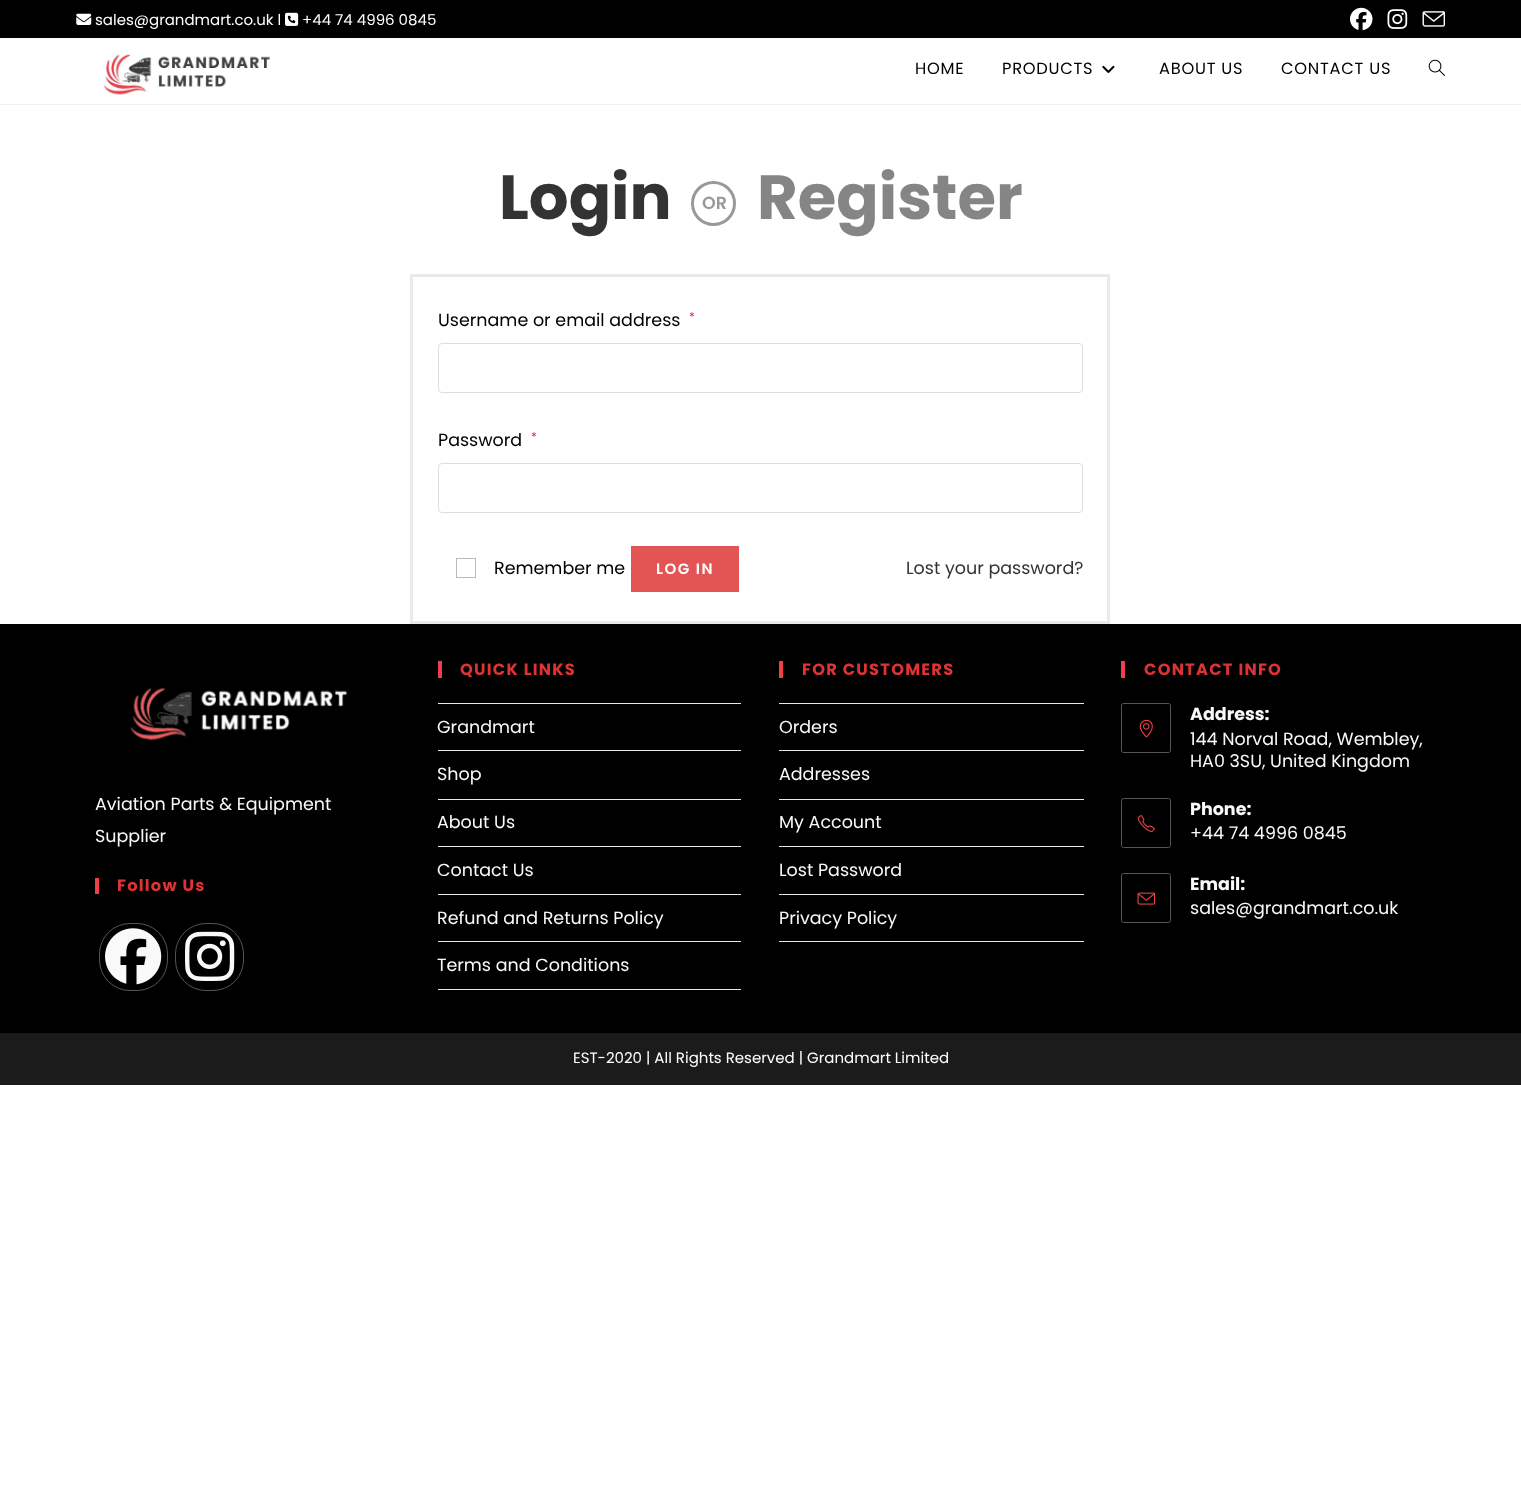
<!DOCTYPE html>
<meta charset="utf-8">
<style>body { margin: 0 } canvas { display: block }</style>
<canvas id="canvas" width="1521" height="1495"></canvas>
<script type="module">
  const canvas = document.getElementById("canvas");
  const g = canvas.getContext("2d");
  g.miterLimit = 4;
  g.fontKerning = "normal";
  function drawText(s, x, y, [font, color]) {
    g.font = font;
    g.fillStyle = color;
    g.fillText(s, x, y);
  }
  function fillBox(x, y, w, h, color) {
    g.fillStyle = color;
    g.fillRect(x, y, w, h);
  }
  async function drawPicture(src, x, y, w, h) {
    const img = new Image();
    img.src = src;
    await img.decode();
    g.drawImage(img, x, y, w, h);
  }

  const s1 = ["15px Poppins", "#FFFFFF"];
  const s2 = ["16.25px Poppins", "#000000"];
  const s3 = ["bold 62.5px Poppins", "#333333"];
  const s4 = ["600 17.5px Poppins", "#999999"];
  const s5 = ["bold 62.5px Poppins", "#858585"];
  const s6 = ["17.5px Poppins", "#000000"];
  const s7 = ["12px Poppins", "#E42234"];
  const s8 = ["600 15px Poppins", "#FFFFFF"];
  const s9 = ["17.5px Poppins", "#333333"];
  const s10 = ["17.5px Poppins", "#F9F9F9"];
  const s11 = ["bold 16.25px Poppins", "#DD3333"];
  const s12 = ["bold 17.5px Poppins", "#F9F9F9"];

  fillBox(0, 0, 1521, 1495, "#FFFFFF");
  fillBox(0, 0, 1521, 38, "#000000");
  fillBox(0, 38, 1521, 1, "#F9F9F9");
  await drawPicture("pic1.png", 76, 13, 16, 12);
  drawText("sales@grandmart.co.uk l", 95, 25, s1);
  await drawPicture("pic2.png", 285, 12, 14, 14);
  drawText("+44 74 4996 0845", 302, 25, s1);
  await drawPicture("pic3.png", 1350, 7, 23, 24);
  await drawPicture("pic4.png", 1387, 9, 21, 20);
  await drawPicture("pic5.png", 1422, 11, 24, 16);
  fillBox(0, 104, 1521, 1, "#F1F1F1");
  await drawPicture("pic6.png", 103, 54, 167, 41);
  g.letterSpacing = "0.75px";
  drawText("HOME", 915, 74, s2);
  drawText("PRODUCTS", 1002, 74, s2);
  await drawPicture("pic7.png", 1102, 65, 13, 8);
  drawText("ABOUT US", 1159, 74, s2);
  drawText("CONTACT US", 1281, 74, s2);
  await drawPicture("pic8.png", 1428, 59, 17, 17);
  g.letterSpacing = "0px";
  drawText("Login", 499, 219, s3);
  g.beginPath();
  g.arc(713.5, 203.5, 21, 0, Math.PI * 2);
  g.strokeStyle = "#999999";
  g.lineWidth = 3;
  g.stroke();
  drawText("OR", 702, 209, s4);
  drawText("Register", 757, 219, s5);
  g.strokeStyle = "#EAEAEA";
  g.strokeRect(411.5, 275.5, 697, 347);
  drawText("Username or email address", 438, 326, s6);
  drawText("*", 689, 321, s7);
  g.beginPath();
  g.roundRect(438.5, 343.5, 644, 49, 3.5);
  g.strokeStyle = "#DDDDDD";
  g.lineWidth = 1;
  g.stroke();
  drawText("Password", 438, 446, s6);
  drawText("*", 531, 441, s7);
  g.beginPath();
  g.roundRect(438.5, 463.5, 644, 49, 3.5);
  g.stroke();
  g.strokeStyle = "#BBBBBB";
  g.strokeRect(456.5, 558.5, 19, 19);
  drawText("Remember me", 494, 574, s6);
  fillBox(631, 546, 108, 46, "#E35454");
  g.letterSpacing = "1.5px";
  drawText("LOG IN", 656, 574, s8);
  g.letterSpacing = "0px";
  drawText("Lost your password?", 906, 574, s9);
  fillBox(0, 624, 1521, 409, "#000000");
  await drawPicture("pic9.png", 130, 687, 218, 54);
  drawText("Aviation Parts & Equipment", 95, 810, s10);
  drawText("Supplier", 95, 842, s10);
  fillBox(95, 878, 4, 16, "#EF3F49");
  g.letterSpacing = "1.25px";
  drawText("Follow Us", 117, 891, s11);
  g.beginPath();
  g.roundRect(99.5, 923.5, 68, 67, 30.5);
  g.strokeStyle = "#555555";
  g.stroke();
  await drawPicture("pic10.png", 105, 928, 57, 57);
  g.beginPath();
  g.roundRect(175.5, 923.5, 68, 67, 30.5);
  g.stroke();
  await drawPicture("pic11.png", 185, 931, 50, 50);
  fillBox(438, 661, 4, 17, "#EF3F49");
  drawText("QUICK LINKS", 460, 675, s11);
  fillBox(438, 703, 303, 1, "#E9E9E9");
  fillBox(438, 750, 303, 1, "#E9E9E9");
  g.letterSpacing = "0px";
  drawText("Grandmart", 437, 733, s10);
  fillBox(438, 799, 303, 1, "#E9E9E9");
  drawText("Shop", 437, 780, s10);
  fillBox(438, 846, 303, 1, "#E9E9E9");
  drawText("About Us", 437, 828, s10);
  fillBox(438, 894, 303, 1, "#E9E9E9");
  drawText("Contact Us", 437, 876, s10);
  fillBox(438, 941, 303, 1, "#E9E9E9");
  drawText("Refund and Returns Policy", 437, 924, s10);
  fillBox(438, 989, 303, 1, "#E9E9E9");
  drawText("Terms and Conditions", 437, 971, s10);
  fillBox(779, 661, 4, 17, "#EF3F49");
  g.letterSpacing = "1.25px";
  drawText("FOR CUSTOMERS", 802, 675, s11);
  fillBox(779, 703, 305, 1, "#E9E9E9");
  fillBox(779, 750, 305, 1, "#E9E9E9");
  g.letterSpacing = "0px";
  drawText("Orders", 779, 733, s10);
  fillBox(779, 799, 305, 1, "#E9E9E9");
  drawText("Addresses", 779, 780, s10);
  fillBox(779, 846, 305, 1, "#E9E9E9");
  drawText("My Account", 779, 828, s10);
  fillBox(779, 894, 305, 1, "#E9E9E9");
  drawText("Lost Password", 779, 876, s10);
  fillBox(779, 941, 305, 1, "#E9E9E9");
  drawText("Privacy Policy", 779, 924, s10);
  fillBox(1121, 661, 4, 17, "#EF3F49");
  g.letterSpacing = "1.25px";
  drawText("CONTACT INFO", 1144, 675, s11);
  g.beginPath();
  g.roundRect(1121.5, 703.5, 49, 49, 2);
  g.stroke();
  await drawPicture("pic12.png", 1139, 719, 14, 19);
  g.letterSpacing = "0px";
  drawText("Address:", 1190, 720, s12);
  drawText("144 Norval Road, Wembley,", 1190, 745, s10);
  drawText("HA0 3SU, United Kingdom", 1190, 767, s10);
  g.beginPath();
  g.roundRect(1121.5, 798.5, 49, 49, 2);
  g.stroke();
  await drawPicture("pic13.png", 1137, 815, 18, 17);
  drawText("Phone:", 1190, 815, s12);
  drawText("+44 74 4996 0845", 1190, 839, s10);
  g.beginPath();
  g.roundRect(1121.5, 873.5, 49, 49, 2);
  g.stroke();
  await drawPicture("pic14.png", 1137, 892, 18, 13);
  drawText("Email:", 1190, 890, s12);
  drawText("sales@grandmart.co.uk", 1190, 914, s10);
  fillBox(0, 1033, 1521, 52, "#1B1B1B");
  drawText("EST-2020 | All Rights Reserved | Grandmart Limited", 573, 1063, s1);
</script>
